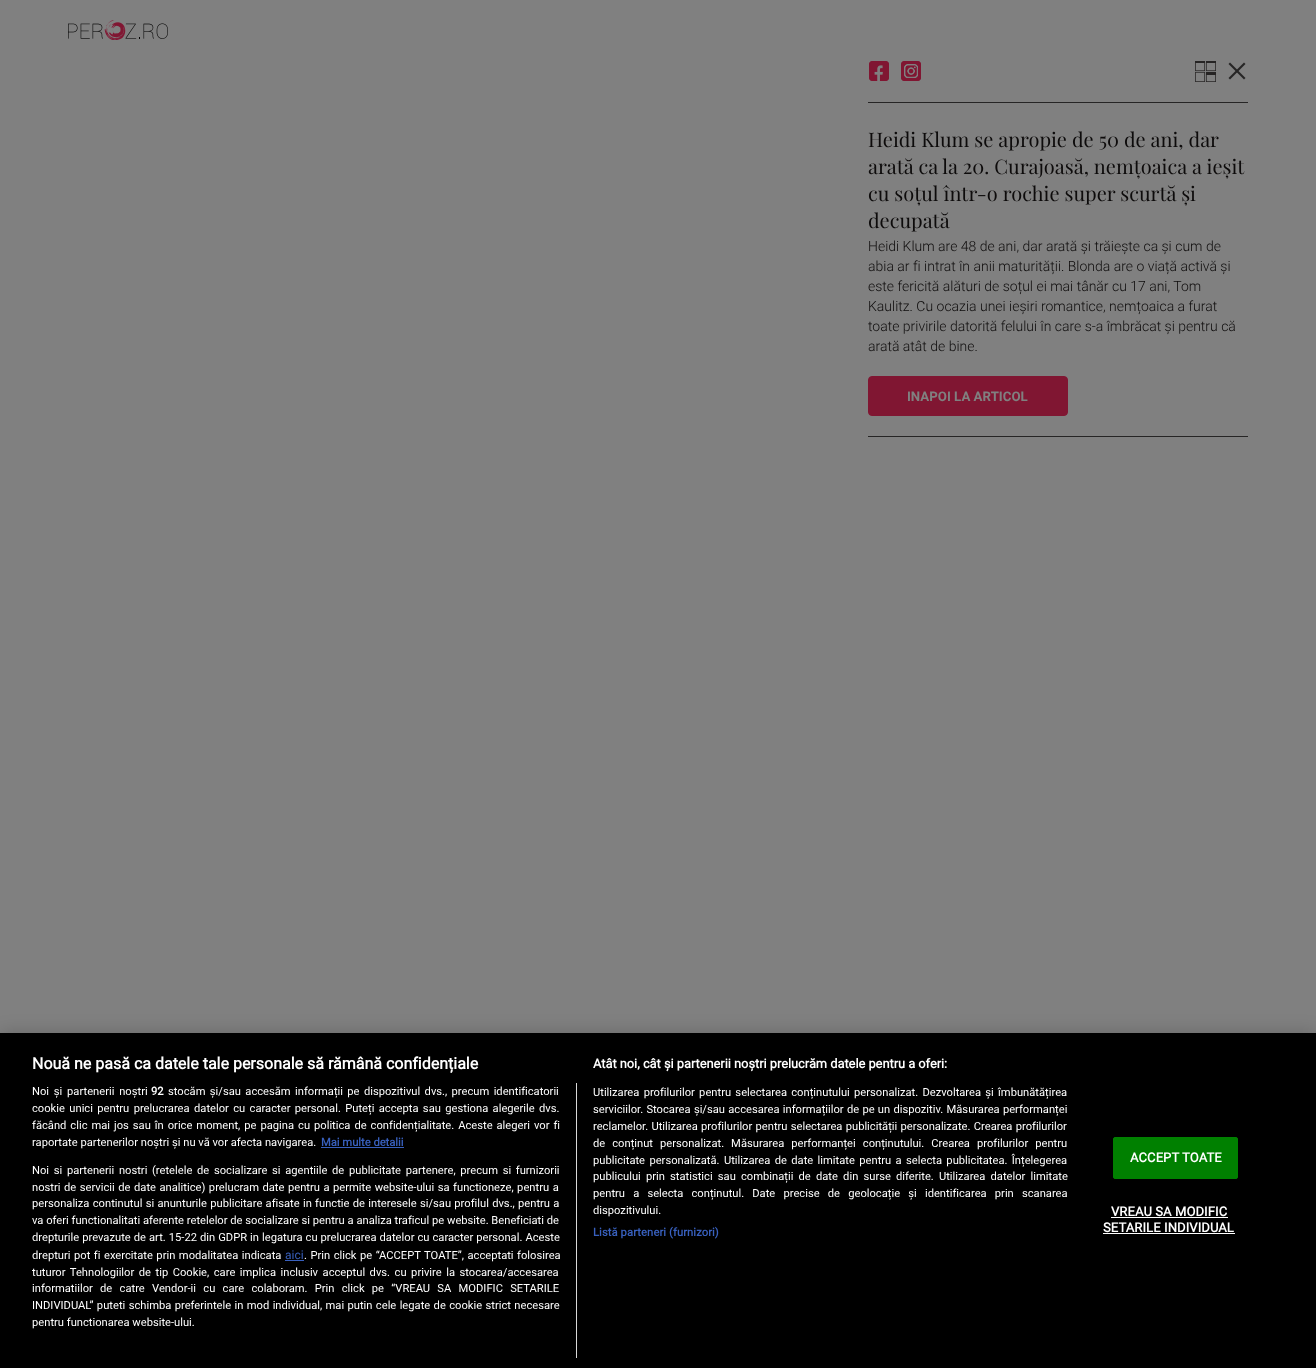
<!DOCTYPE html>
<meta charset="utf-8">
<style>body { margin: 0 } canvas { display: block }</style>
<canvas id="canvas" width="1316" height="1368"></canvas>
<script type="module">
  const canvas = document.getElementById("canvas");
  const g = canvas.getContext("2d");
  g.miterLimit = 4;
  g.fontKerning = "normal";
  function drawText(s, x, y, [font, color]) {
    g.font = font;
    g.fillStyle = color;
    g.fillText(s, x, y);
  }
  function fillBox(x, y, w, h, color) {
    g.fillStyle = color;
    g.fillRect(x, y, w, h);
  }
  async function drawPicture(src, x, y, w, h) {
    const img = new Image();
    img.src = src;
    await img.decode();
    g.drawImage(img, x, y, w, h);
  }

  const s1 = ["20px Playfair Display", "#0D0B0B"];
  const s2 = ["300 14px Roboto", "#0D0B0B"];
  const s3 = ["bold 13.25px Roboto", "#808080"];
  const s4 = ["bold 16px 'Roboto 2'", "#FFFFFF"];
  const s5 = ["bold 12.8px 'Roboto 2'", "#FFFFFF"];
  const s6 = ["11.2px Roboto", "#FFFFFF"];
  const s7 = ["bold 11.2px 'Roboto 2'", "#3860BE"];
  const s8 = ["bold 11.2px 'Roboto 2'", "#FFFFFF"];
  const s9 = ["12px Roboto", "#3860BE"];
  const s10 = ["bold 13px 'Roboto 2'", "#FFFFFF"];

  fillBox(0, 0, 1316, 1368, "#808080");
  await drawPicture("pic1.png", 68, 20, 100, 20);
  fillBox(868, 102, 380, 1, "#262525");
  await drawPicture("pic2.png", 869, 61, 20, 20);
  await drawPicture("pic3.png", 901, 61, 20, 20);
  await drawPicture("pic4.png", 1195, 61, 21, 21);
  g.beginPath();
  g.moveTo(1244, 62.5);
  g.lineTo(1245.5, 64);
  g.lineTo(1230, 79.5);
  g.lineTo(1228.5, 78);
  g.closePath();
  g.fill();
  g.beginPath();
  g.moveTo(1228.5, 64);
  g.lineTo(1230, 62.5);
  g.lineTo(1245.5, 78);
  g.lineTo(1244, 79.5);
  g.closePath();
  g.fill();
  fillBox(868, 436, 380, 1, "#262525");
  drawText("Heidi Klum se apropie de 50 de ani, dar", 868, 147, s1);
  drawText("arată ca la 20. Curajoasă, nemțoaica a ieșit", 868, 174, s1);
  drawText("cu soțul într-o rochie super scurtă și", 868, 201, s1);
  drawText("decupată", 868, 228, s1);
  drawText("Heidi Klum are 48 de ani, dar arată și trăiește ca și cum de", 868, 251, s2);
  drawText("abia ar fi intrat în anii maturității. Blonda are o viață activă și", 868, 271, s2);
  drawText("este fericită alături de soțul ei mai tânăr cu 17 ani, Tom", 868, 291, s2);
  drawText("Kaulitz. Cu ocazia unei ieșiri romantice, nemțoaica a furat", 868, 311, s2);
  drawText("toate privirile datorită felului în care s-a îmbrăcat și pentru că", 868, 331, s2);
  drawText("arată atât de bine.", 868, 351, s2);
  g.fillStyle = "#801632";
  g.beginPath();
  g.roundRect(868.5, 376.5, 199, 39, 3.5);
  g.fill();
  g.strokeStyle = "#801632";
  g.stroke();
  drawText("INAPOI LA ARTICOL", 907, 401, s3);
  g.fillStyle = "rgba(0, 0, 0, 0.2)";
  g.filter = "blur(9px)";
  g.beginPath();
  g.rect(0, 1033, 1316, 335);
  g.fill();
  g.filter = "none";
  fillBox(0, 1033, 1316, 335, "#000000");
  drawText("Nouă ne pasă ca datele tale personale să rămână confidențiale", 32, 1069, s4);
  drawText("Atât noi, cât și partenerii noștri prelucrăm datele pentru a oferi:", 593, 1068, s5);
  g.wordSpacing = "1.5px";
  drawText("Utilizarea profilurilor pentru selectarea conținutului personalizat. Dezvoltarea și îmbunătățirea", 593, 1096, s6);
  g.wordSpacing = "0.5px";
  drawText("serviciilor. Stocarea și/sau accesarea informațiilor de pe un dispozitiv. Măsurarea performanței", 593, 1113, s6);
  drawText("reclamelor. Utilizarea profilurilor pentru selectarea publicității personalizate. Crearea profilurilor", 593, 1130, s6);
  g.wordSpacing = "4.25px";
  drawText("de conținut personalizat. Măsurarea performanței conținutului. Crearea profilurilor pentru", 593, 1147, s6);
  g.wordSpacing = "1.6px";
  drawText("publicitate personalizată. Utilizarea de date limitate pentru a selecta publicitatea. Înțelegerea", 593, 1164, s6);
  g.wordSpacing = "2.4px";
  drawText("publicului prin statistici sau combinații de date din surse diferite. Utilizarea datelor limitate", 593, 1180, s6);
  g.wordSpacing = "5.4px";
  drawText("pentru a selecta conținutul. Date precise de geolocație și identificarea prin scanarea", 593, 1197, s6);
  g.wordSpacing = "0px";
  drawText("dispozitivului.", 593, 1214, s6);
  g.letterSpacing = "0.1px";
  drawText("Listă parteneri (furnizori)", 593, 1236, s7);
  fillBox(576, 1083, 1, 275, "#D8D8D8");
  g.letterSpacing = "0px";
  g.wordSpacing = "2px";
  drawText("Noi și partenerii noștri", 32, 1095, s6);
  g.wordSpacing = "0px";
  drawText("92", 151, 1095, s8);
  g.wordSpacing = "1.6px";
  drawText("stocăm și/sau accesăm informații pe dispozitivul dvs., precum identificatorii", 168, 1095, s6);
  drawText("cookie unici pentru prelucrarea datelor cu caracter personal. Puteți accepta sau gestiona alegerile dvs.", 32, 1112, s6);
  g.wordSpacing = "1.2px";
  drawText("făcând clic mai jos sau în orice moment, pe pagina cu politica de confidențialitate. Aceste alegeri vor fi", 32, 1129, s6);
  g.wordSpacing = "0px";
  drawText("raportate partenerilor noștri și nu vă vor afecta navigarea.", 32, 1146, s6);
  drawText("Mai multe detalii", 321, 1146, s7);
  fillBox(321, 1147, 83, 1, "#3860BE");
  g.wordSpacing = "1.9px";
  drawText("Noi si partenerii nostri (retelele de socializare si agentiile de publicitate partenere, precum si furnizorii", 32, 1174, s6);
  g.wordSpacing = "0.75px";
  drawText("nostri de servicii de date analitice) prelucram date pentru a permite website-ului sa functioneze, pentru a", 32, 1191, s6);
  g.wordSpacing = "0.5px";
  drawText("personaliza continutul si anunturile publicitare afisate in functie de interesele si/sau profilul dvs., pentru a", 32, 1207, s6);
  g.wordSpacing = "0px";
  drawText("va oferi functionalitati aferente retelelor de socializare si pentru a analiza traficul pe website. Beneficiati de", 32, 1224, s6);
  g.wordSpacing = "0.25px";
  drawText("drepturile prevazute de art. 15-22 din GDPR in legatura cu prelucrarea datelor cu caracter personal. Aceste", 32, 1241, s6);
  g.wordSpacing = "0.75px";
  drawText("drepturi pot fi exercitate prin modalitatea indicata", 32, 1259, s6);
  g.wordSpacing = "0px";
  drawText("aici", 285, 1259, s9);
  fillBox(285, 1260, 19, 1, "#3860BE");
  g.wordSpacing = "0.75px";
  drawText(". Prin click pe “ACCEPT TOATE”, acceptati folosirea", 304, 1259, s6);
  g.wordSpacing = "1.75px";
  drawText("tuturor Tehnologiilor de tip Cookie, care implica inclusiv acceptul dvs. cu privire la stocarea/accesarea", 32, 1276, s6);
  g.wordSpacing = "4.5px";
  drawText("informatiilor de catre Vendor-ii cu care colaboram. Prin click pe “VREAU SA MODIFIC SETARILE", 32, 1292, s6);
  g.wordSpacing = "0.6px";
  drawText("INDIVIDUAL” puteti schimba preferintele in mod individual, mai putin cele legate de cookie strict necesare", 32, 1309, s6);
  g.wordSpacing = "0px";
  drawText("pentru functionarea website-ului.", 32, 1326, s6);
  g.fillStyle = "#008000";
  g.beginPath();
  g.roundRect(1113.5, 1137.5, 124, 41, 1.5);
  g.fill();
  g.strokeStyle = "#008000";
  g.stroke();
  g.letterSpacing = "0.1px";
  drawText("ACCEPT TOATE", 1130, 1162, s10);
  drawText("VREAU SA MODIFIC", 1111, 1216, s10);
  fillBox(1111, 1217, 117, 1, "#FFFFFF");
  drawText("SETARILE INDIVIDUAL", 1103, 1232, s10);
  fillBox(1103, 1233, 132, 1, "#FFFFFF");
</script>
